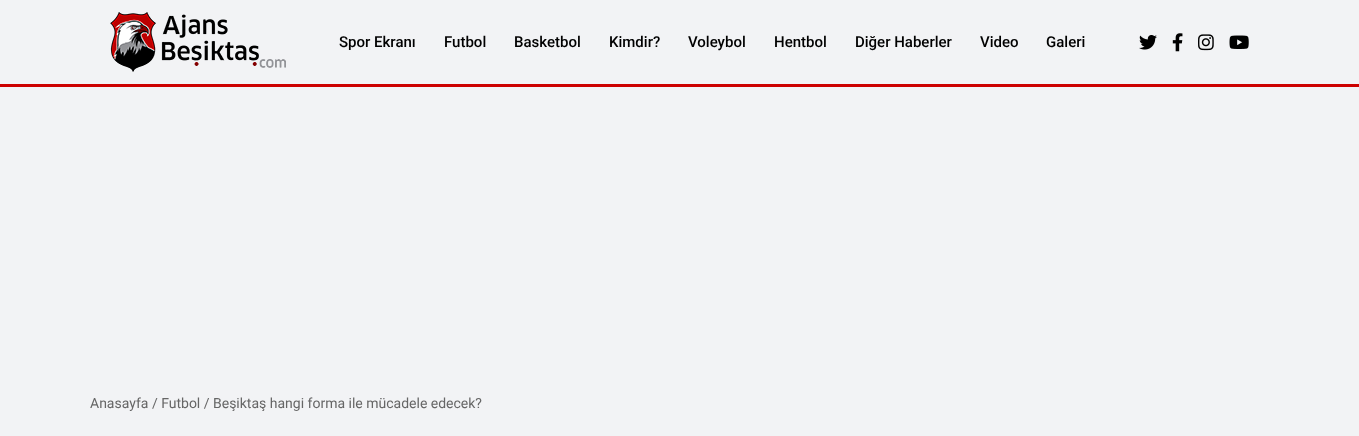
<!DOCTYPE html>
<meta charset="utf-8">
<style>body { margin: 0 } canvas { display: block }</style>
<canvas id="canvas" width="1359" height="436"></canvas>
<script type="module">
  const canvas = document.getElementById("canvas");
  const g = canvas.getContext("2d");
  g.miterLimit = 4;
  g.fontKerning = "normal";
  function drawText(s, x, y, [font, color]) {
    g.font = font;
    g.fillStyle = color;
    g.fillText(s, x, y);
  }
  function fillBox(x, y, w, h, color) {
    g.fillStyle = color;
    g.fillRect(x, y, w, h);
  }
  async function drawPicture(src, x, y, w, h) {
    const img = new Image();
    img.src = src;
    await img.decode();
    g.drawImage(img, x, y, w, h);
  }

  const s1 = ["500 15px Roboto", "#000000"];
  const s2 = ["14px Roboto", "#666666"];

  fillBox(0, 0, 1359, 436, "#F2F3F5");
  fillBox(0, 84, 1359, 3, "#CC0000");
  await drawPicture("pic1.png", 110, 12, 176, 60);
  drawText("Spor Ekranı", 339, 47, s1);
  drawText("Futbol", 444, 47, s1);
  drawText("Basketbol", 514, 47, s1);
  drawText("Kimdir?", 609, 47, s1);
  drawText("Voleybol", 688, 47, s1);
  drawText("Hentbol", 774, 47, s1);
  drawText("Diğer Haberler", 855, 47, s1);
  drawText("Video", 980, 47, s1);
  drawText("Galeri", 1046, 47, s1);
  await drawPicture("pic2.png", 1139, 35, 18, 15);
  await drawPicture("pic3.png", 1172, 33, 11, 19);
  await drawPicture("pic4.png", 1198, 34, 16, 17);
  await drawPicture("pic5.png", 1229, 35, 20, 14);
  drawText("Anasayfa / Futbol / Beşiktaş hangi forma ile mücadele edecek?", 90, 408, s2);
</script>
